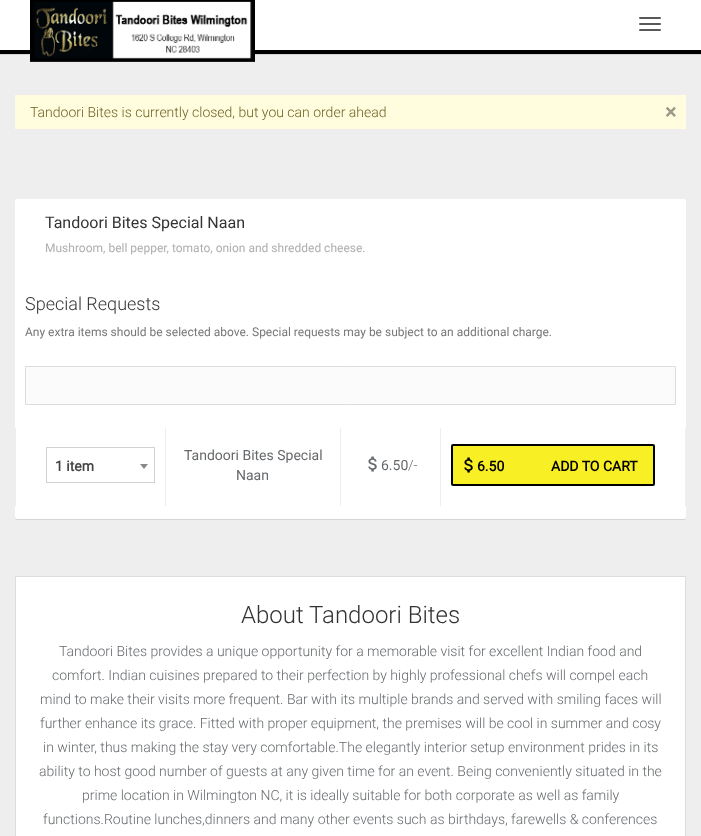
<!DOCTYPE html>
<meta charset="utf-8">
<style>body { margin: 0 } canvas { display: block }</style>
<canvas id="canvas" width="701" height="836"></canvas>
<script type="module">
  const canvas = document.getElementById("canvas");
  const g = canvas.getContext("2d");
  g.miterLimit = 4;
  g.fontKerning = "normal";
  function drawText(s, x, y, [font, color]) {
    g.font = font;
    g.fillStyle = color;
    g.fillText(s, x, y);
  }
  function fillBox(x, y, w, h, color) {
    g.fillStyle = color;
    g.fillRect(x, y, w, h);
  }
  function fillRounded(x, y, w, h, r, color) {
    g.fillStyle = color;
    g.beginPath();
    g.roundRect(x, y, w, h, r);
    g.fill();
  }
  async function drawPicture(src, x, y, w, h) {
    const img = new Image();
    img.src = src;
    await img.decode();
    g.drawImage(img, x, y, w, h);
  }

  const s1 = ["300 14px Roboto", "#6D6225"];
  const s2 = ["bold 21px Roboto", "#999889"];
  const s3 = ["16px Roboto", "#333333"];
  const s4 = ["12px Roboto", "#AEAEAE"];
  const s5 = ["300 18px Roboto", "#333333"];
  const s6 = ["12px Roboto", "#777777"];
  const s7 = ["bold 14px Roboto", "#444444"];
  const s8 = ["14px Roboto", "#66696C"];
  const s9 = ["300 14px Roboto", "#66696C"];
  const s10 = ["bold 14px Roboto", "#000000"];
  const s11 = ["300 24px Roboto", "#333333"];

  fillBox(0, 0, 701, 836, "#EEEEEE");
  g.fillStyle = "rgba(0, 0, 0, 0.1)";
  g.filter = "blur(0.5px)";
  g.beginPath();
  g.rect(0, 1, 701, 54);
  g.fill();
  g.filter = "none";
  fillBox(0, 0, 701, 50, "#FFFFFF");
  fillBox(0, 50, 701, 4, "#000000");
  await drawPicture("pic1.png", 30, 0, 225, 62);
  fillRounded(639, 17, 22, 2, 1, "#58585B");
  fillRounded(639, 23, 22, 2, 1, "#58585B");
  fillRounded(639, 29, 22, 2, 1, "#58585B");
  fillBox(15, 95, 671, 34, "#FFFDDE");
  drawText("Tandoori Bites is currently closed, but you can order ahead", 30, 117, s1);
  drawText("×", 665, 119, s2);
  g.fillStyle = "rgba(0, 0, 0, 0.1)";
  g.filter = "blur(0.5px)";
  g.beginPath();
  g.roundRect(15, 200, 671, 320, 2);
  g.fill();
  g.filter = "none";
  fillRounded(15, 199, 671, 320, 2, "#FFFFFF");
  drawText("Tandoori Bites Special Naan", 45, 228, s3);
  drawText("Mushroom, bell pepper, tomato, onion and shredded cheese.", 45, 252, s4);
  drawText("Special Requests", 25, 310, s5);
  drawText("Any extra items should be selected above. Special requests may be subject to an additional charge.", 25, 336, s6);
  g.fillStyle = "#FBFBFB";
  g.beginPath();
  g.rect(25.5, 366.5, 650, 38);
  g.fill();
  g.strokeStyle = "#DCDCDC";
  g.stroke();
  fillBox(15, 428, 1, 78, "#EEEEEE");
  g.strokeStyle = "#D2D2D2";
  g.strokeRect(46.5, 447.5, 108, 35);
  drawText("1 item", 55, 471, s7);
  g.fillStyle = "#888888";
  g.beginPath();
  g.moveTo(140, 464);
  g.lineTo(148, 464);
  g.lineTo(144, 469);
  g.closePath();
  g.fill();
  fillBox(165, 428, 1, 78, "#EEEEEE");
  drawText("Tandoori Bites Special", 184, 460, s8);
  drawText("Naan", 236, 480, s8);
  fillBox(340, 428, 1, 78, "#EEEEEE");
  await drawPicture("pic2.png", 368, 456, 9, 16);
  drawText("6.50", 381, 470, s8);
  drawText("/-", 408, 470, s9);
  fillBox(685, 428, 1, 78, "#EEEEEE");
  fillBox(440, 428, 1, 78, "#EEEEEE");
  g.fillStyle = "#F8EF24";
  g.beginPath();
  g.roundRect(452, 445, 202, 40, 1);
  g.fill();
  g.strokeStyle = "#000000";
  g.lineWidth = 2;
  g.stroke();
  await drawPicture("pic3.png", 464, 457, 9, 16);
  drawText("6.50", 477, 471, s10);
  drawText("ADD TO CART", 551, 471, s10);
  g.fillStyle = "#FFFFFF";
  g.beginPath();
  g.rect(15.5, 576.5, 670, 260);
  g.fill();
  g.strokeStyle = "#DDDDDD";
  g.lineWidth = 1;
  g.stroke();
  drawText("About Tandoori Bites", 241, 623, s11);
  drawText("Tandoori Bites provides a unique opportunity for a memorable visit for excellent Indian food and", 59, 656, s9);
  drawText("comfort. Indian cuisines prepared to their perfection by highly professional chefs will compel each", 52, 680, s9);
  drawText("mind to make their visits more frequent. Bar with its multiple brands and served with smiling faces will", 40, 704, s9);
  drawText("further enhance its grace. Fitted with proper equipment, the premises will be cool in summer and cosy", 40, 728, s9);
  drawText("in winter, thus making the stay very comfortable.The elegantly interior setup environment prides in its", 43, 752, s9);
  drawText("ability to host good number of guests at any given time for an event. Being conveniently situated in the", 39, 776, s9);
  drawText("prime location in Wilmington NC, it is ideally suitable for both corporate as well as family", 82, 800, s9);
  drawText("functions.Routine lunches,dinners and many other events such as birthdays, farewells & conferences", 43, 824, s9);
</script>
